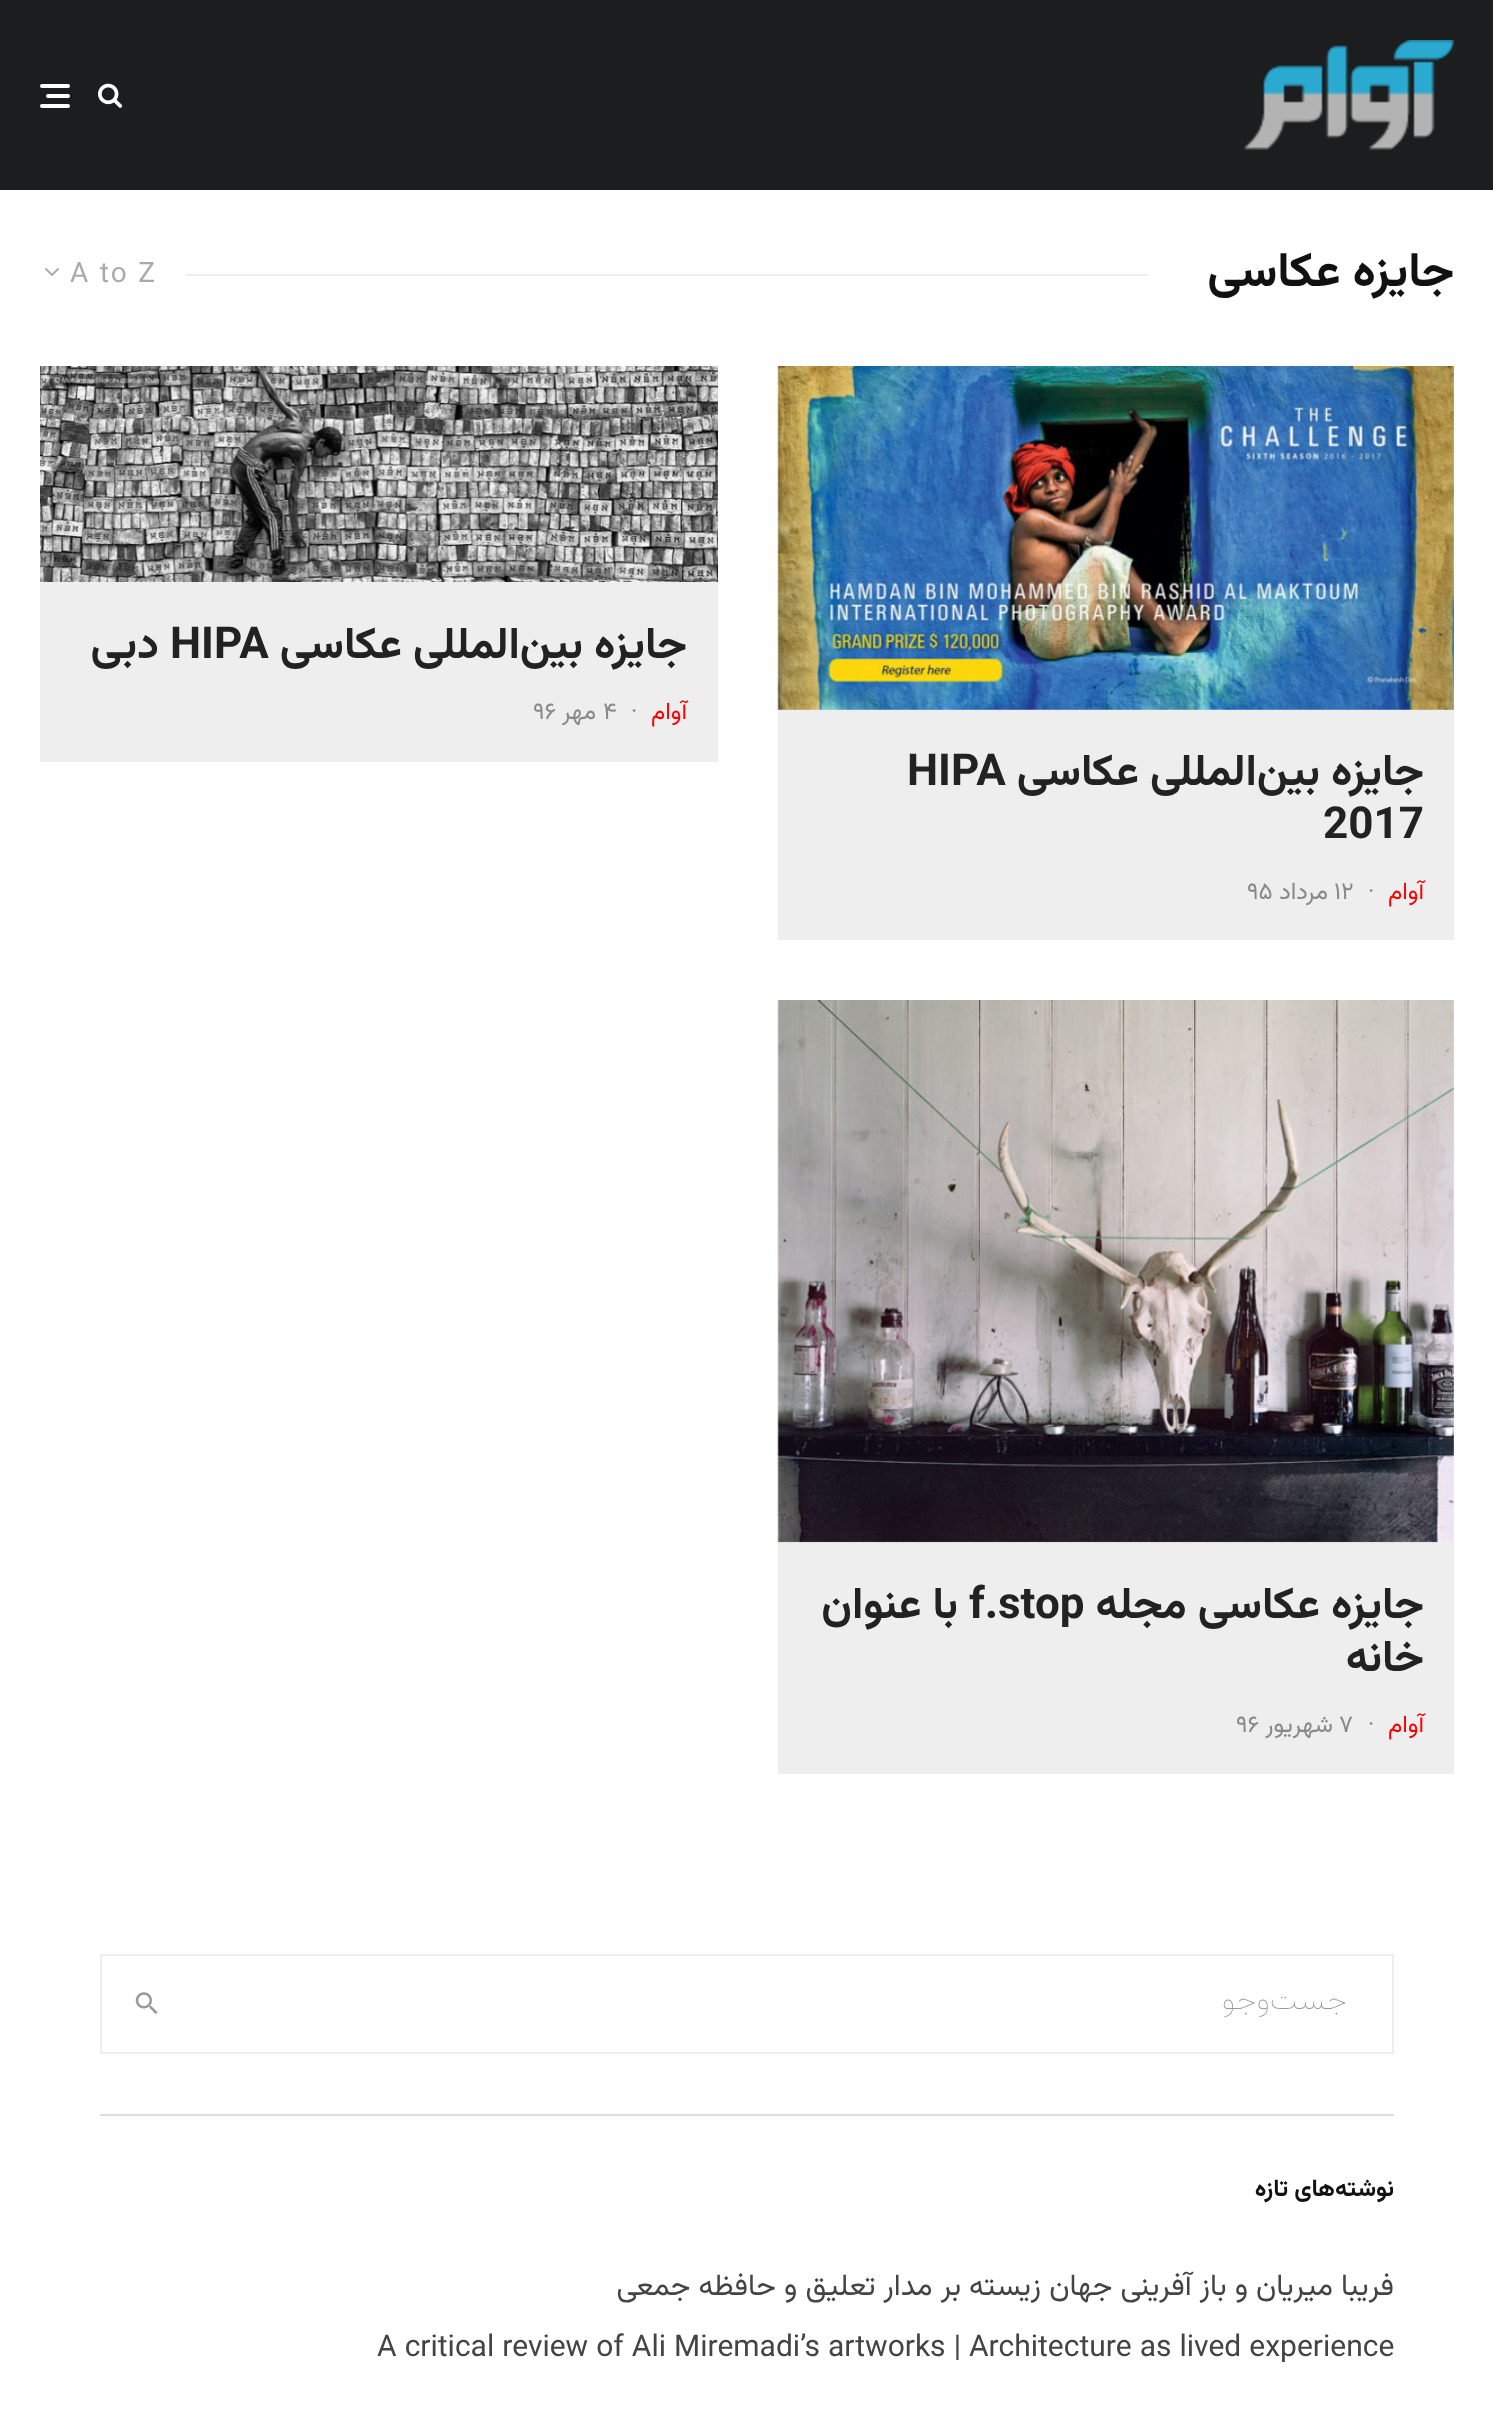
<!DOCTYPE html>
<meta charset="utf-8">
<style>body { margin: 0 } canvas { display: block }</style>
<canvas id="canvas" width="1493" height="2409"></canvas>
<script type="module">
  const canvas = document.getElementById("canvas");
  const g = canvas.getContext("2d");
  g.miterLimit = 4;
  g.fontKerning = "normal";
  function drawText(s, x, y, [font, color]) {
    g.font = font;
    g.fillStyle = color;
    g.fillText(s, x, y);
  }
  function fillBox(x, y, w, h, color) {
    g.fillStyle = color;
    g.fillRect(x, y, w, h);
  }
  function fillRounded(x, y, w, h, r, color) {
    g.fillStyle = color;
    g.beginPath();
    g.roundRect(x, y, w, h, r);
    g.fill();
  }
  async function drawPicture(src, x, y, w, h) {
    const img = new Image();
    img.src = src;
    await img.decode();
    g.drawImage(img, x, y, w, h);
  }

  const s1 = ["bold 48px Vazirmatn", "#111111"];
  const s2 = ["28px Vazirmatn", "#AAAAAA"];
  const s3 = ["bold 44px Vazirmatn", "#222222"];
  const s4 = ["24px Vazirmatn", "#FF0000"];
  const s5 = ["24px Vazirmatn", "#888888"];
  const s6 = ["100 32px Vazirmatn", "#999999"];
  const s7 = ["bold 24px Vazirmatn", "#111111"];
  const s8 = ["30px Vazirmatn", "#444444"];

  fillBox(0, 0, 1493, 2409, "#FFFFFF");
  fillBox(0, 0, 1493, 190, "#1C1D1E");
  await drawPicture("pic1.png", 1244, 40, 210, 110);
  await drawPicture("pic2.png", 98, 83, 25, 25);
  fillRounded(46, 94, 24, 4, 2, "#FFFFFF");
  fillRounded(40, 84, 30, 4, 2, "#FFFFFF");
  fillRounded(40, 104, 30, 4, 2, "#FFFFFF");
  g.direction = "rtl";
  drawText("جایزه عکاسی", 1454, 286, s1);
  fillBox(186, 274, 962, 2, "#EEEEEE");
  g.letterSpacing = "2px";
  g.direction = "ltr";
  drawText("A to Z", 70, 282, s2);
  await drawPicture("pic3.png", 45, 268, 14, 8);
  fillBox(40, 582, 678, 180, "#EEEEEE");
  await drawPicture("pic4.png", 40, 366, 678, 216);
  g.letterSpacing = "0px";
  g.direction = "rtl";
  drawText("جایزه بین‌المللی عکاسی", 687, 658, s3);
  g.direction = "ltr";
  drawText("HIPA", 170, 658, s3);
  g.direction = "rtl";
  drawText("دبی", 159, 658, s3);
  drawText("آوام", 687, 719, s4);
  g.direction = "ltr";
  drawText("·", 631, 719, s5);
  drawText("۴", 603, 719, s5);
  g.direction = "rtl";
  drawText("مهر", 596, 719, s5);
  g.direction = "ltr";
  drawText("۹۶", 533, 719, s5);
  fillBox(778, 710, 676, 230, "#EEEEEE");
  fillBox(778, 366, 676, 344, "#DDDDDD");
  await drawPicture("pic5.png", 777, 366, 677, 344);
  g.direction = "rtl";
  drawText("جایزه بین‌المللی عکاسی", 1424, 785, s3);
  g.direction = "ltr";
  drawText("HIPA", 907, 785, s3);
  drawText("2017", 1323, 838, s3);
  g.direction = "rtl";
  drawText("آوام", 1424, 899, s4);
  g.direction = "ltr";
  drawText("·", 1368, 899, s5);
  drawText("۱۲", 1334, 899, s5);
  g.direction = "rtl";
  drawText("مرداد", 1328, 899, s5);
  g.direction = "ltr";
  drawText("۹۵", 1247, 899, s5);
  fillBox(778, 1000, 676, 774, "#EEEEEE");
  await drawPicture("pic6.png", 777, 1000, 677, 543);
  g.direction = "rtl";
  drawText("جایزه عکاسی مجله", 1424, 1618, s3);
  g.direction = "ltr";
  drawText("f.stop", 969, 1618, s3);
  g.direction = "rtl";
  drawText("با عنوان", 958, 1618, s3);
  drawText("خانه", 1424, 1671, s3);
  drawText("آوام", 1424, 1732, s4);
  g.direction = "ltr";
  drawText("·", 1368, 1732, s5);
  drawText("۷", 1339, 1732, s5);
  g.direction = "rtl";
  drawText("شهریور", 1333, 1732, s5);
  g.direction = "ltr";
  drawText("۹۶", 1236, 1732, s5);
  fillBox(100, 2114, 1294, 2, "#DDDDDD");
  g.strokeStyle = "#EEEEEE";
  g.lineWidth = 2;
  g.strokeRect(101, 1955, 1292, 98);
  g.direction = "rtl";
  drawText("جست‌وجو", 1347, 2009, s6);
  await drawPicture("pic7.png", 135, 1992, 23, 22);
  drawText("نوشته‌های تازه", 1394, 2196, s7);
  drawText("فریبا میریان و باز آفرینی جهان زیسته بر مدار تعلیق و حافظه جمعی", 1394, 2295, s8);
  g.direction = "ltr";
  drawText("A critical review of Ali Miremadi’s artworks | Architecture as lived experience", 377, 2356, s8);
</script>
